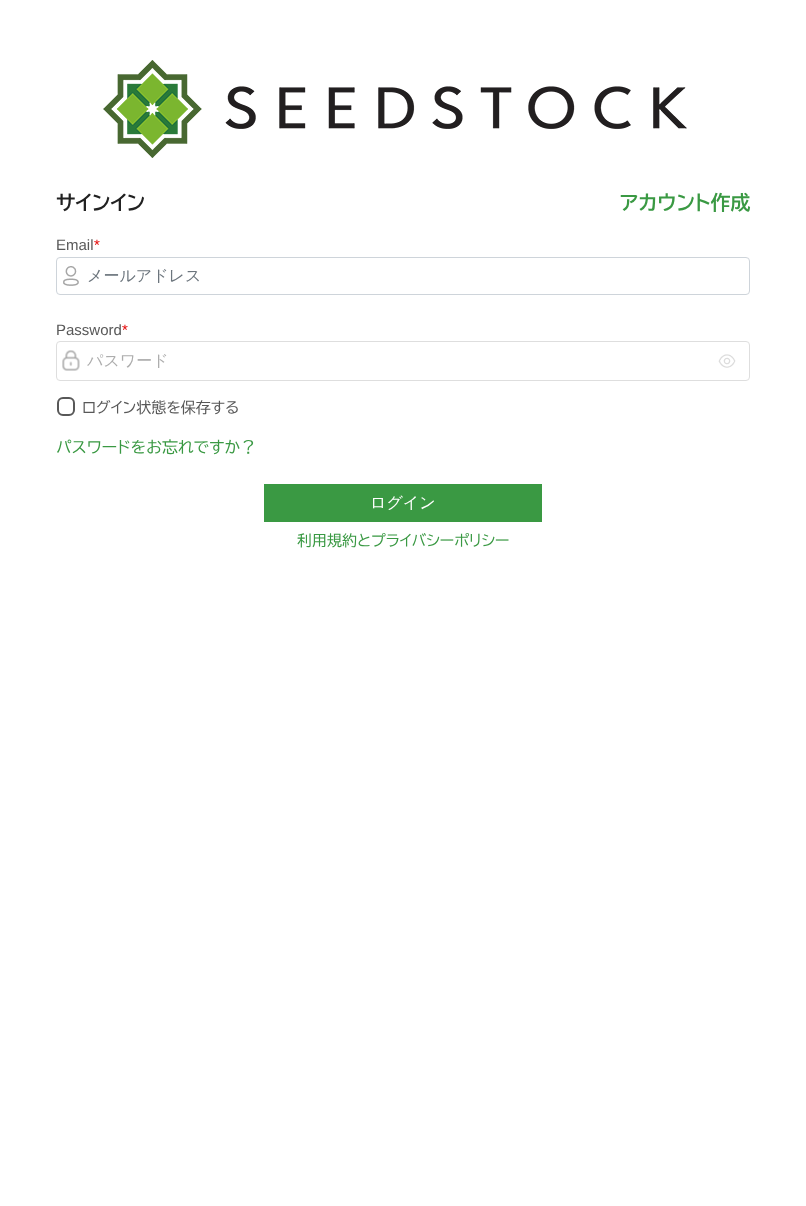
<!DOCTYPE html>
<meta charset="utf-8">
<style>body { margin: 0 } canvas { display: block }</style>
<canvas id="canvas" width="806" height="1206"></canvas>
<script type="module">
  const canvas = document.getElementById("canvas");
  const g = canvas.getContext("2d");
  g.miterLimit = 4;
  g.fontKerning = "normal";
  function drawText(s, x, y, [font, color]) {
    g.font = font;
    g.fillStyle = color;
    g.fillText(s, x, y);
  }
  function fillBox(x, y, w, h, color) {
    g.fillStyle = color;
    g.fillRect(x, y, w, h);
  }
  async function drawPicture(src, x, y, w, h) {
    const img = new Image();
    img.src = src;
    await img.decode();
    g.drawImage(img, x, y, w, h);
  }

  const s1 = ["bold 20px BIZ UDPGothic", "#212121"];
  const s2 = ["bold 20px BIZ UDPGothic", "#3A9943"];
  const s3 = ["15px Liberation Sans", "#585858"];
  const s4 = ["15px Liberation Sans", "#E40303"];
  const s5 = ["500 16px WenQuanYi Zen Hei", "#6C757D"];
  const s6 = ["500 16px WenQuanYi Zen Hei", "#ADADAD"];
  const s7 = ["15px BIZ UDPGothic", "#585858"];
  const s8 = ["16px BIZ UDPGothic", "#3A9943"];
  const s9 = ["500 16px WenQuanYi Zen Hei", "#FFFFFF"];
  const s10 = ["15px BIZ UDPGothic", "#3A9943"];

  fillBox(0, 0, 806, 1206, "#FFFFFF");
  await drawPicture("pic1.png", 103, 60, 584, 98);
  drawText("サインイン", 56, 210, s1);
  drawText("アカウント作成", 620, 210, s2);
  drawText("Email", 56, 250, s3);
  drawText("*", 94, 250, s4);
  g.beginPath();
  g.roundRect(56.5, 257.5, 693, 37, 3.5);
  g.strokeStyle = "#CED4DA";
  g.stroke();
  await drawPicture("pic2.png", 63, 266, 16, 20);
  drawText("メールアドレス", 87, 281, s5);
  drawText("Password", 56, 335, s3);
  drawText("*", 122, 335, s4);
  g.beginPath();
  g.roundRect(56.5, 341.5, 693, 39, 3.5);
  g.strokeStyle = "#DEDEDE";
  g.stroke();
  await drawPicture("pic3.png", 62, 350, 18, 21);
  drawText("パスワード", 87, 366, s6);
  await drawPicture("pic4.png", 718, 354, 18, 14);
  g.beginPath();
  g.roundRect(58, 398, 16, 17, 5);
  g.strokeStyle = "#585858";
  g.lineWidth = 2;
  g.stroke();
  drawText("ログイン状態を保存する", 82, 413, s7);
  drawText("パスワードをお忘れですか？", 56, 453, s8);
  fillBox(264, 484, 278, 38, "#3A9943");
  drawText("ログイン", 370, 508, s9);
  drawText("利用規約とプライバシーポリシー", 297, 546, s10);
</script>
